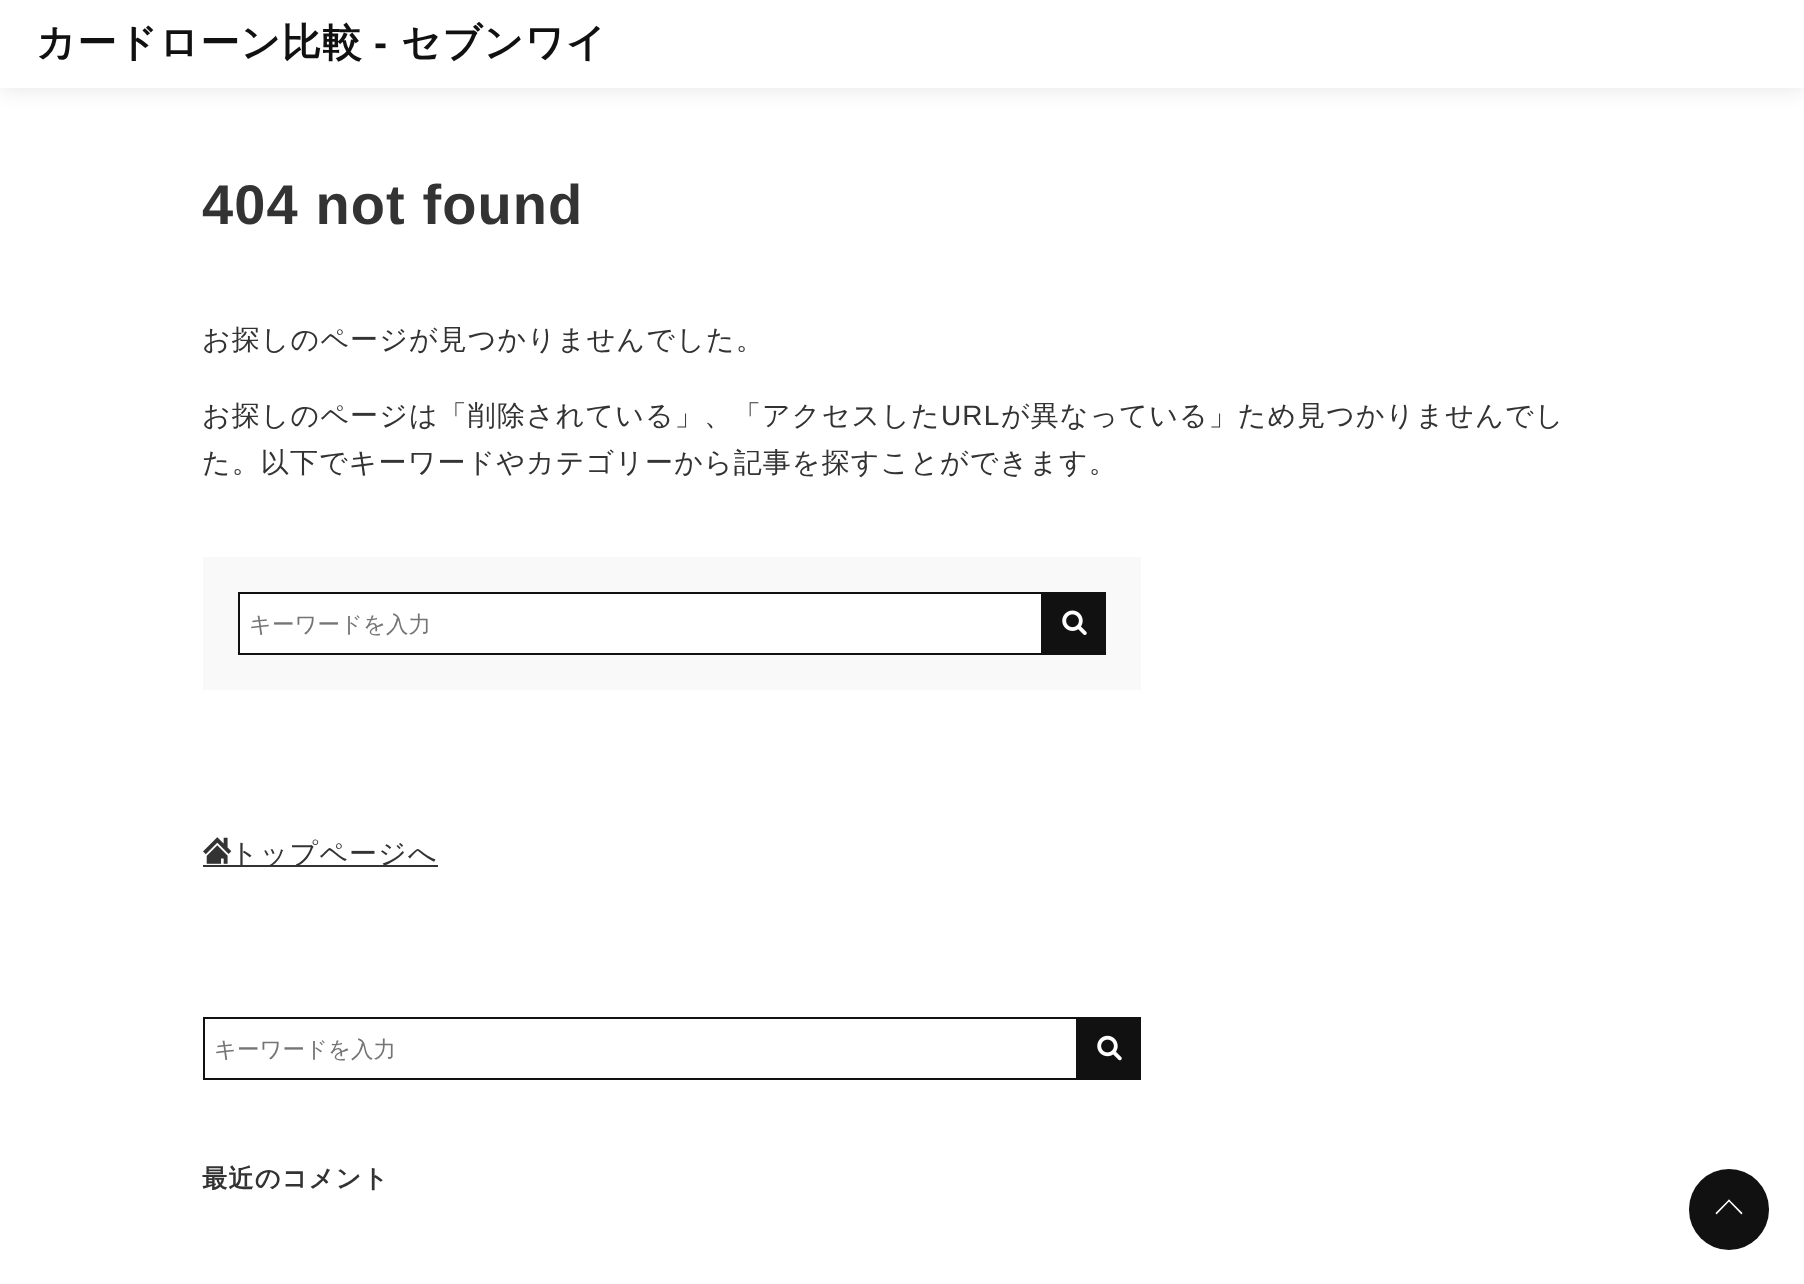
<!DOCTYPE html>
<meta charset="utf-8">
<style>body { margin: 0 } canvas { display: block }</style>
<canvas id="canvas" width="1804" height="1284"></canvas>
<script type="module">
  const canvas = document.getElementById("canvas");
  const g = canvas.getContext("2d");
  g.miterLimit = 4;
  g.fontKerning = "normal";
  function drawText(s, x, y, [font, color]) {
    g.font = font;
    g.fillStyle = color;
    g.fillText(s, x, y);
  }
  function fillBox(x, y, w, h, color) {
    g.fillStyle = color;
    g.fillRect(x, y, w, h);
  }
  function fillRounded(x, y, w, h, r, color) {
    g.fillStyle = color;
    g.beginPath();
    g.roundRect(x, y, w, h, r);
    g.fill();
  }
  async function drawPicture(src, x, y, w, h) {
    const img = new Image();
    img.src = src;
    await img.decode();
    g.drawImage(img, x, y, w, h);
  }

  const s1 = ["bold 39.25px WenQuanYi Zen Hei", "#111111"];
  const s2 = ["bold 39.25px Liberation Sans", "#111111"];
  const s3 = ["bold 56px Liberation Sans", "#333333"];
  const s4 = ["500 28px WenQuanYi Zen Hei", "#333333"];
  const s5 = ["28px Liberation Sans", "#333333"];
  const s6 = ["500 22.5px WenQuanYi Zen Hei", "#757575"];
  const s7 = ["bold 25.25px WenQuanYi Zen Hei", "#333333"];

  fillBox(0, 0, 1804, 1284, "#FFFFFF");
  g.save();
  g.beginPath();
  g.moveTo(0, 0);
  g.lineTo(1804, 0);
  g.lineTo(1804, 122);
  g.lineTo(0, 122);
  g.closePath();
  g.moveTo(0, 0);
  g.lineTo(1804, 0);
  g.lineTo(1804, 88);
  g.lineTo(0, 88);
  g.closePath();
  g.clip("evenodd");
  g.fillStyle = "rgba(0, 0, 0, 0.1)";
  g.filter = "blur(10.5px)";
  g.beginPath();
  g.rect(0, 2, 1804, 87);
  g.fill();
  g.filter = "none";
  g.restore();
  fillBox(0, 87, 1804, 1, "rgba(255, 255, 255, 0.8)");
  g.letterSpacing = "1.1px";
  drawText("カードローン比較", 36, 56, s1);
  drawText("-", 374, 56, s2);
  drawText("セブンワイ", 401, 56, s1);
  drawText("404 not found", 202, 224, s3);
  drawText("お探しのページが見つかりませんでした。", 202, 349, s4);
  drawText("お探しのページは「削除されている」、「アクセスした", 202, 425, s4);
  drawText("URL", 941, 425, s5);
  drawText("が異なっている」ため見つかりませんでし", 1001, 425, s4);
  drawText("た。以下でキーワードやカテゴリーから記事を探すことができます。", 202, 472, s4);
  fillBox(203, 557, 938, 133, "#F9F9F9");
  g.fillStyle = "#FFFFFF";
  g.beginPath();
  g.rect(239, 593, 803, 61);
  g.fill();
  g.strokeStyle = "#111111";
  g.lineWidth = 2;
  g.stroke();
  g.letterSpacing = "0px";
  drawText("キーワードを入力", 249, 632, s6);
  fillBox(1043, 592, 63, 63, "#111111");
  await drawPicture("pic1.png", 1062, 610, 25, 25);
  await drawPicture("pic2.png", 203, 837, 29, 27);
  fillBox(203, 865, 235, 2, "#333333");
  g.letterSpacing = "1.1px";
  drawText("トップページへ", 230, 863, s4);
  g.strokeRect(204, 1018, 873, 61);
  g.letterSpacing = "0px";
  drawText("キーワードを入力", 214, 1057, s6);
  fillBox(1078, 1017, 63, 63, "#111111");
  await drawPicture("pic3.png", 1097, 1035, 25, 26);
  g.letterSpacing = "1.1px";
  drawText("最近のコメント", 202, 1187, s7);
  fillRounded(1689, 1169, 80, 81, 40, "#111111");
  g.fillStyle = "#FFFFFF";
  g.beginPath();
  g.moveTo(1729, 1199.5);
  g.lineTo(1742.5, 1213);
  g.lineTo(1741.5, 1214.5);
  g.lineTo(1728, 1200.5);
  g.closePath();
  g.fill();
  g.beginPath();
  g.moveTo(1729, 1199.5);
  g.lineTo(1730, 1200.5);
  g.lineTo(1716.5, 1214.5);
  g.lineTo(1715.5, 1213);
  g.closePath();
  g.fill();
</script>
